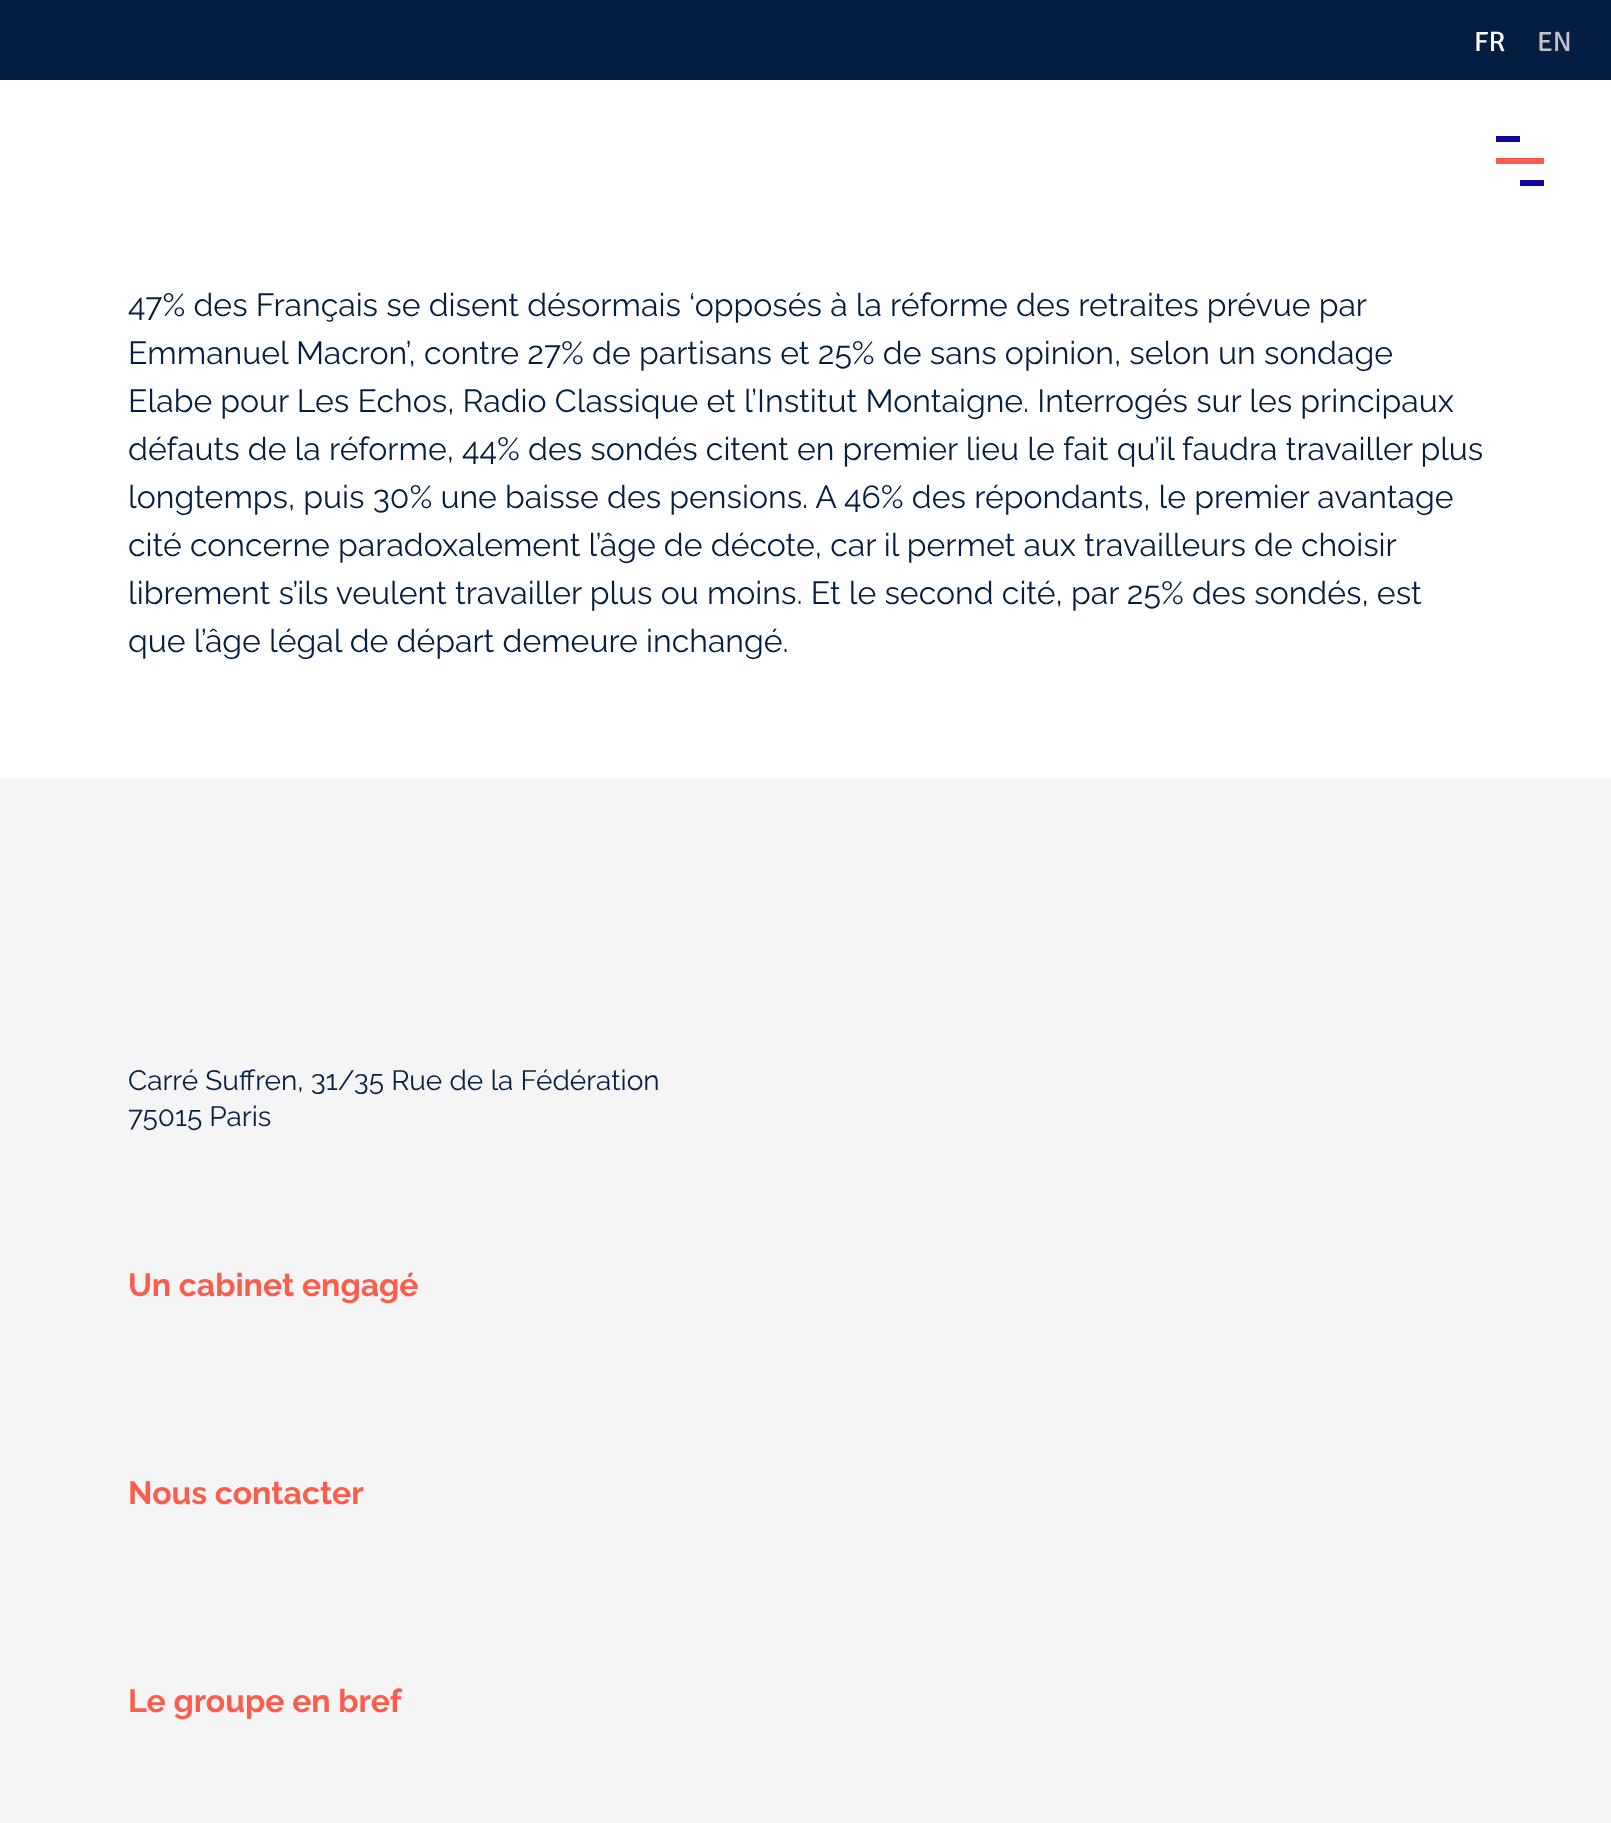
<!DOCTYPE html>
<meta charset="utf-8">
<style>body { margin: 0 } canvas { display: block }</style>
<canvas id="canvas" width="1611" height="1823"></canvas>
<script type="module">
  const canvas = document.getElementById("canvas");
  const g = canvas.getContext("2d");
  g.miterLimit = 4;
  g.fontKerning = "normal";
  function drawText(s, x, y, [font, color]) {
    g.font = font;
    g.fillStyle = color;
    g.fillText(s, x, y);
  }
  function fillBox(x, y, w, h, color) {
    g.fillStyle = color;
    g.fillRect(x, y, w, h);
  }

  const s1 = ["28px Signika", "#FFFFFF"];
  const s2 = ["28px Signika", "#C4C4C4"];
  const s3 = ["32px Raleway", "#041E42"];
  const s4 = ["28px Raleway", "#041E42"];
  const s5 = ["bold 32px Raleway", "#FB5C4B"];

  fillBox(0, 0, 1611, 1823, "#FFFFFF");
  fillBox(0, 0, 1611, 80, "#041E42");
  drawText("FR", 1474, 51, s1);
  drawText("EN", 1537, 51, s2);
  fillBox(1496, 136, 24, 6, "#10069F");
  fillBox(1496, 158, 48, 6, "#FB5C4B");
  fillBox(1520, 180, 24, 6, "#10069F");
  drawText("47% des Français se disent désormais ‘opposés à la réforme des retraites prévue par", 128, 316, s3);
  drawText("Emmanuel Macron’, contre 27% de partisans et 25% de sans opinion, selon un sondage", 128, 364, s3);
  drawText("Elabe pour Les Echos, Radio Classique et l’Institut Montaigne. Interrogés sur les principaux", 128, 412, s3);
  drawText("défauts de la réforme, 44% des sondés citent en premier lieu le fait qu’il faudra travailler plus", 128, 460, s3);
  drawText("longtemps, puis 30% une baisse des pensions. A 46% des répondants, le premier avantage", 128, 508, s3);
  drawText("cité concerne paradoxalement l’âge de décote, car il permet aux travailleurs de choisir", 128, 556, s3);
  drawText("librement s’ils veulent travailler plus ou moins. Et le second cité, par 25% des sondés, est", 128, 604, s3);
  drawText("que l’âge légal de départ demeure inchangé.", 128, 652, s3);
  fillBox(0, 778, 1611, 1045, "#F5F5F5");
  drawText("Carré Suffren, 31/35 Rue de la Fédération", 128, 1090, s4);
  drawText("75015 Paris", 128, 1126, s4);
  drawText("Un cabinet engagé", 128, 1296, s5);
  drawText("Nous contacter", 128, 1504, s5);
  drawText("Le groupe en bref", 128, 1712, s5);
</script>
